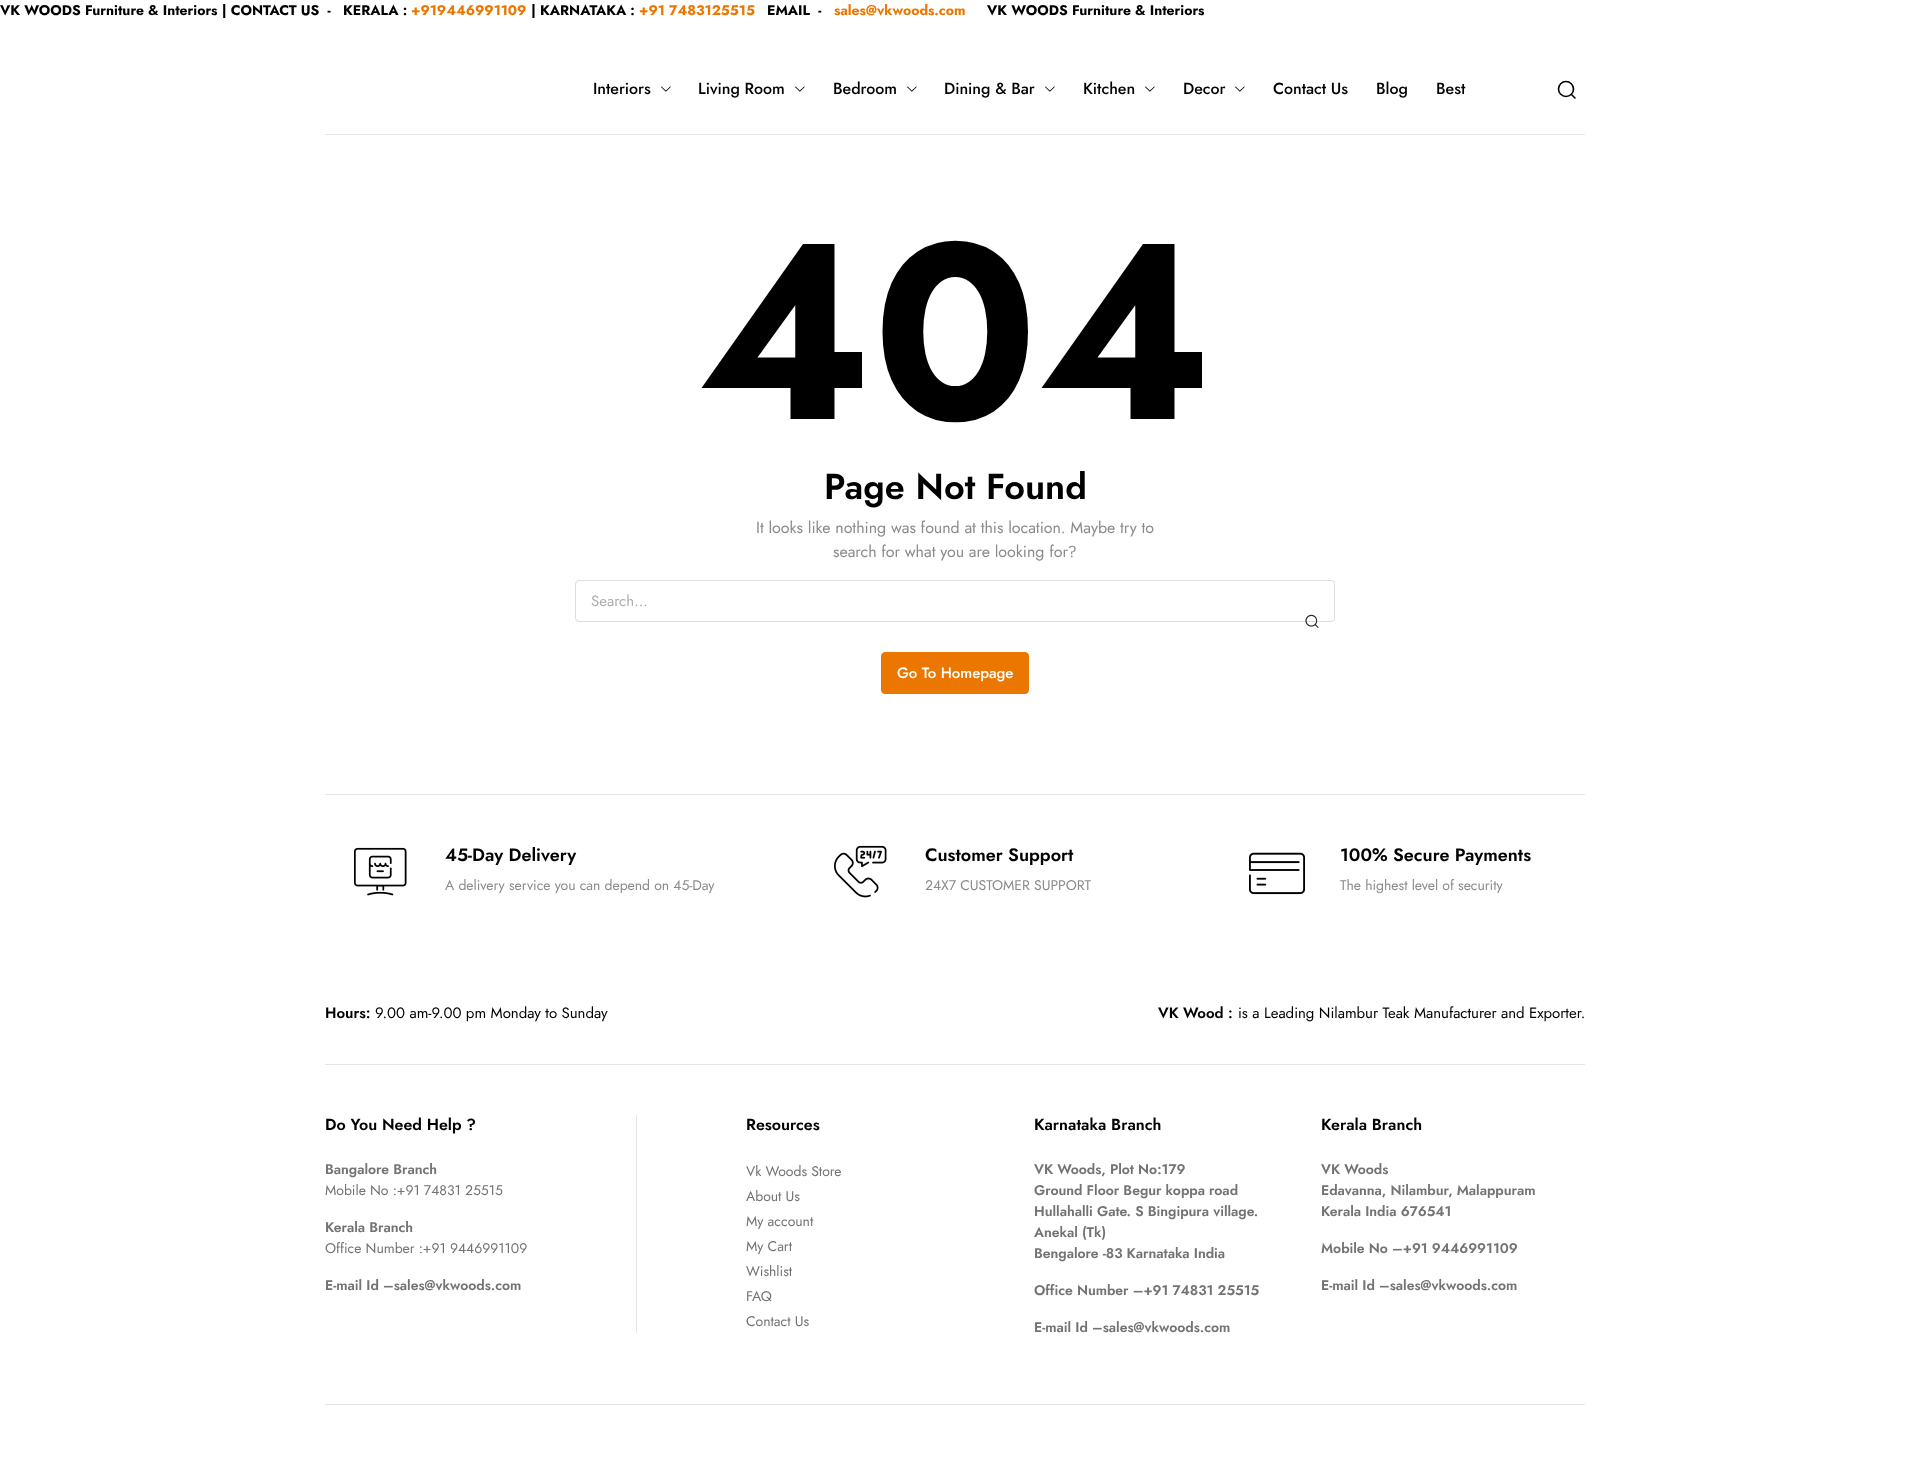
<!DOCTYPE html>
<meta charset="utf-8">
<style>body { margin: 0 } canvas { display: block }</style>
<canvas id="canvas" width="1910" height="1459"></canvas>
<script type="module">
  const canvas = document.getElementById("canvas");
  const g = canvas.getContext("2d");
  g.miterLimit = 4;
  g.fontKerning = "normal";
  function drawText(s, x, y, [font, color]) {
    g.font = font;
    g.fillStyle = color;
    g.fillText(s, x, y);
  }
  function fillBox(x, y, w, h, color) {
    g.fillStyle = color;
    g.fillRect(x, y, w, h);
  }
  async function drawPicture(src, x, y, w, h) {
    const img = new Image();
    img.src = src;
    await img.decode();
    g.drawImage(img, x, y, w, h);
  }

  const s1 = ["bold 14px Jost", "#000000"];
  const s2 = ["bold 14px Jost", "#EB7700"];
  const s3 = ["500 16px Jost", "#000000"];
  const s4 = ["bold 250px Jost", "#000000"];
  const s5 = ["600 36px Jost", "#000000"];
  const s6 = ["16px Jost", "#8A8B8E"];
  const s7 = ["15px Jost", "#ADADAD"];
  const s8 = ["500 15px Jost", "#FFFFFF"];
  const s9 = ["600 18px Jost", "#000000"];
  const s10 = ["14px Jost", "#8A8B8E"];
  const s11 = ["600 15px Jost", "#000000"];
  const s12 = ["15px Jost", "#000000"];
  const s13 = ["600 16px Jost", "#000000"];
  const s14 = ["600 14px Jost", "#737373"];
  const s15 = ["14px Jost", "#737373"];

  fillBox(0, 0, 1910, 1459, "#FFFFFF");
  g.letterSpacing = "-0.03px";
  drawText("VK WOODS Furniture & Interiors | CONTACT US  -   KERALA :", 0, 15, s1);
  drawText("+919446991109", 411, 15, s2);
  drawText("| KARNATAKA :", 531, 15, s1);
  drawText("+91 7483125515", 639, 15, s2);
  drawText("EMAIL  -", 767, 15, s1);
  drawText("sales@vkwoods.com", 834, 15, s2);
  drawText("VK WOODS Furniture & Interiors", 987, 15, s1);
  fillBox(325, 134, 1260, 1, "#E5E5E5");
  drawText("Interiors", 593, 94, s3);
  await drawPicture("pic1.png", 661, 86, 10, 6);
  drawText("Living Room", 698, 94, s3);
  await drawPicture("pic1.png", 795, 86, 10, 6);
  drawText("Bedroom", 833, 94, s3);
  await drawPicture("pic1.png", 907, 86, 10, 6);
  drawText("Dining & Bar", 944, 94, s3);
  await drawPicture("pic1.png", 1045, 86, 10, 6);
  drawText("Kitchen", 1083, 94, s3);
  await drawPicture("pic1.png", 1145, 86, 10, 6);
  drawText("Decor", 1183, 94, s3);
  await drawPicture("pic1.png", 1235, 86, 10, 6);
  drawText("Contact Us", 1273, 94, s3);
  drawText("Blog", 1376, 94, s3);
  drawText("Best", 1436, 94, s3);
  g.beginPath();
  g.arc(1566, 89, 7.5, 0, Math.PI * 2);
  g.strokeStyle = "#000000";
  g.lineWidth = 1.6;
  g.stroke();
  g.beginPath();
  g.moveTo(1575, 98);
  g.lineTo(1571.5, 94.5);
  g.lineCap = "round";
  g.lineJoin = "round";
  g.stroke();
  g.letterSpacing = "0px";
  drawText("404", 698, 419, s4);
  drawText("Page Not Found", 824, 499, s5);
  g.letterSpacing = "-0.03px";
  drawText("It looks like nothing was found at this location. Maybe try to", 756, 533, s6);
  drawText("search for what you are looking for?", 833, 557, s6);
  g.beginPath();
  g.roundRect(575.5, 580.5, 759, 41, 3.5);
  g.strokeStyle = "#DDDDDD";
  g.lineWidth = 1;
  g.lineJoin = "miter";
  g.stroke();
  g.letterSpacing = "0px";
  drawText("Search...", 591, 606, s7);
  await drawPicture("pic2.png", 1305, 614, 14, 14);
  g.fillStyle = "#EB7700";
  g.beginPath();
  g.roundRect(881.5, 652.5, 147, 41, 3.5);
  g.fill();
  g.strokeStyle = "#EB7700";
  g.stroke();
  g.letterSpacing = "-0.03px";
  drawText("Go To Homepage", 897, 678, s8);
  fillBox(325, 794, 1260, 1, "#E5E5E5");
  await drawPicture("pic3.png", 354, 847, 53, 49);
  g.letterSpacing = "0px";
  drawText("45-Day Delivery", 445, 861, s9);
  g.letterSpacing = "-0.03px";
  drawText("A delivery service you can depend on 45-Day", 445, 890, s10);
  await drawPicture("pic4.png", 834, 845, 53, 53);
  g.letterSpacing = "0px";
  drawText("Customer Support", 925, 861, s9);
  g.letterSpacing = "-0.03px";
  drawText("24X7 CUSTOMER SUPPORT", 925, 890, s10);
  await drawPicture("pic5.png", 1249, 852, 56, 43);
  g.letterSpacing = "0px";
  drawText("100% Secure Payments", 1340, 861, s9);
  g.letterSpacing = "-0.03px";
  drawText("The highest level of security", 1340, 890, s10);
  drawText("Hours:", 325, 1018, s11);
  drawText("9.00 am-9.00 pm Monday to Sunday", 375, 1018, s12);
  drawText("VK Wood :", 1158, 1018, s11);
  drawText("is a Leading Nilambur Teak Manufacturer and Exporter.", 1238, 1018, s12);
  fillBox(325, 1064, 1260, 1, "#E5E5E5");
  g.letterSpacing = "0px";
  drawText("Do You Need Help ?", 325, 1130, s13);
  g.letterSpacing = "-0.03px";
  drawText("Bangalore Branch", 325, 1174, s14);
  drawText("Mobile No :+91 74831 25515", 325, 1195, s15);
  drawText("Kerala Branch", 325, 1232, s14);
  drawText("Office Number :+91 9446991109", 325, 1253, s15);
  drawText("E-mail Id –sales@vkwoods.com", 325, 1290, s14);
  fillBox(636, 1115, 1, 218, "#E6E6E6");
  g.letterSpacing = "0px";
  drawText("Resources", 746, 1130, s13);
  g.letterSpacing = "-0.03px";
  drawText("Vk Woods Store", 746, 1176, s15);
  drawText("About Us", 746, 1201, s15);
  drawText("My account", 746, 1226, s15);
  drawText("My Cart", 746, 1251, s15);
  drawText("Wishlist", 746, 1276, s15);
  drawText("FAQ", 746, 1301, s15);
  drawText("Contact Us", 746, 1326, s15);
  g.letterSpacing = "0px";
  drawText("Karnataka Branch", 1034, 1130, s13);
  g.letterSpacing = "-0.03px";
  drawText("VK Woods, Plot No:179", 1034, 1174, s14);
  drawText("Ground Floor Begur koppa road", 1034, 1195, s14);
  drawText("Hullahalli Gate. S Bingipura village.", 1034, 1216, s14);
  drawText("Anekal (Tk)", 1034, 1237, s14);
  drawText("Bengalore -83 Karnataka India", 1034, 1258, s14);
  drawText("Office Number –+91 74831 25515", 1034, 1295, s14);
  drawText("E-mail Id –sales@vkwoods.com", 1034, 1332, s14);
  g.letterSpacing = "0px";
  drawText("Kerala Branch", 1321, 1130, s13);
  g.letterSpacing = "-0.03px";
  drawText("VK Woods", 1321, 1174, s14);
  drawText("Edavanna, Nilambur, Malappuram", 1321, 1195, s14);
  drawText("Kerala India 676541", 1321, 1216, s14);
  drawText("Mobile No –+91 9446991109", 1321, 1253, s14);
  drawText("E-mail Id –sales@vkwoods.com", 1321, 1290, s14);
  fillBox(325, 1404, 1260, 1, "#E5E5E5");
</script>
